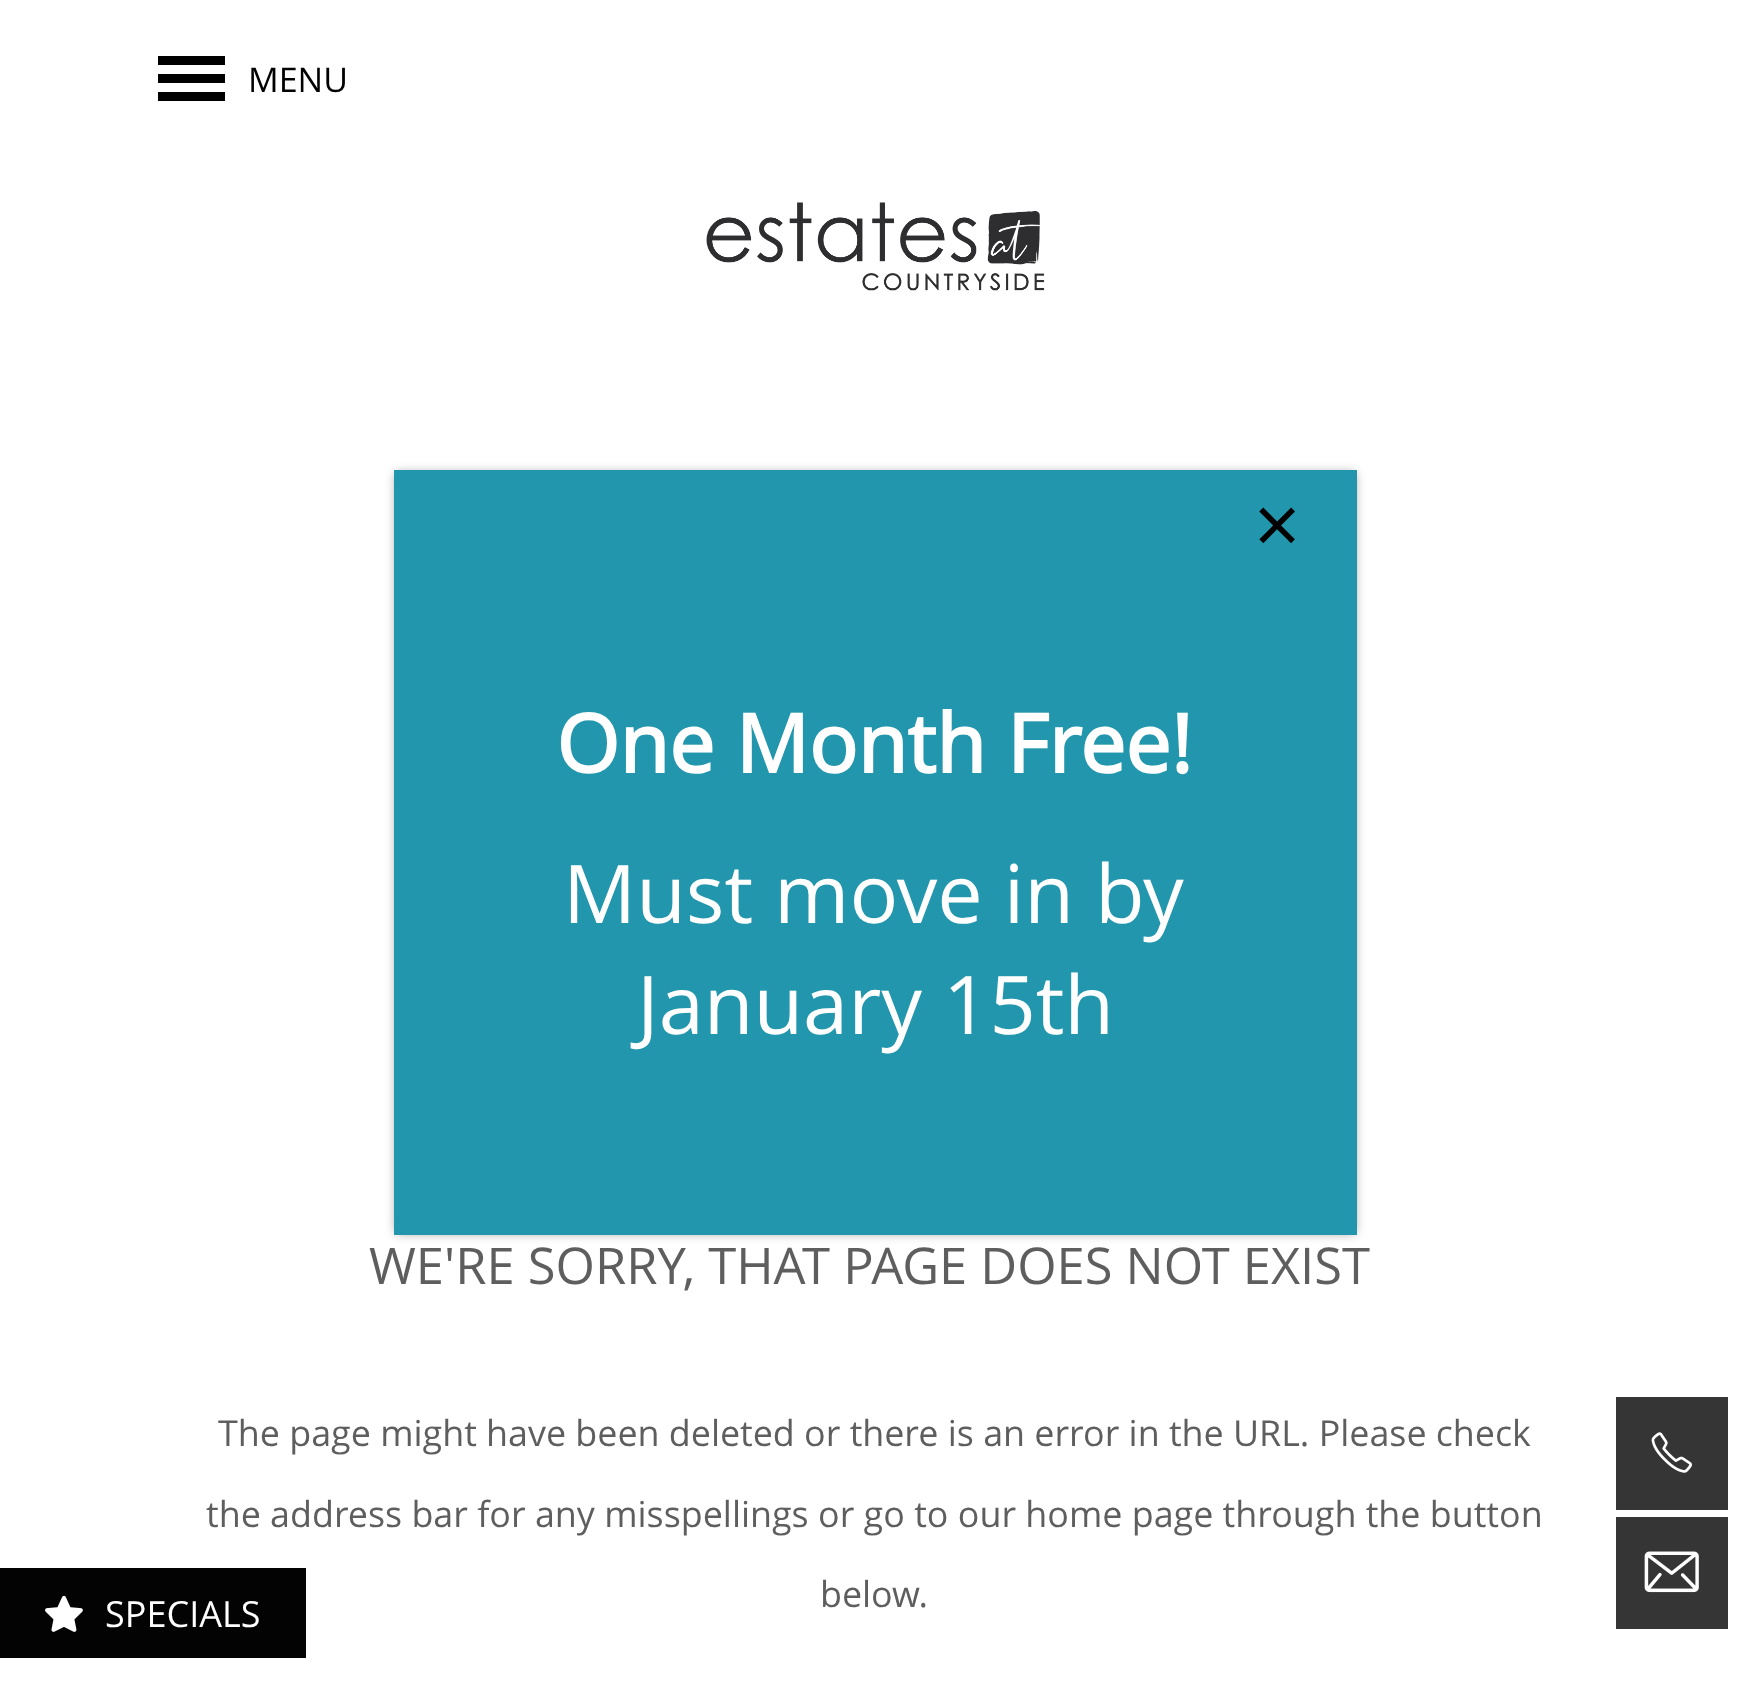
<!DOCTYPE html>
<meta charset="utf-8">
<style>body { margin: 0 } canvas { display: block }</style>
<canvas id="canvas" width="1749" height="1703"></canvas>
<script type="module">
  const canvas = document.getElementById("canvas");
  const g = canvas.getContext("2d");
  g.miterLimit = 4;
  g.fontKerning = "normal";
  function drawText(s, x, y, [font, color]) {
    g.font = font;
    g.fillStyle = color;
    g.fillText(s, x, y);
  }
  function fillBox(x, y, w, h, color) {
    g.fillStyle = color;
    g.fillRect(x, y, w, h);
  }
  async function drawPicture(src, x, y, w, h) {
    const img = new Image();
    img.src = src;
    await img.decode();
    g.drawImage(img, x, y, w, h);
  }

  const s1 = ["34px Open Sans", "#000000"];
  const s2 = ["81px Open Sans", "#000000"];
  const s3 = ["bold 81px Open Sans", "#FFFFFF"];
  const s4 = ["81px Open Sans", "#FFFFFF"];
  const s5 = ["36px Open Sans", "#FFFFFF"];
  const s6 = ["50.6px Open Sans", "#5E5E5E"];
  const s7 = ["35.85px Open Sans", "#5E5E5E"];

  fillBox(0, 0, 1749, 1703, "#FFFFFF");
  fillBox(158, 56, 67, 9, "#000000");
  fillBox(158, 74, 67, 9, "#000000");
  fillBox(158, 92, 67, 9, "#000000");
  drawText("MENU", 248, 92, s1);
  await drawPicture("pic1.png", 706, 202, 339, 89);
  g.fillStyle = "#999999";
  g.filter = "blur(5.5px)";
  g.beginPath();
  g.rect(396, 473, 959, 760);
  g.fill();
  g.filter = "none";
  fillBox(394, 470, 963, 765, "#2196AC");
  drawText("×", 1254, 554, s2);
  drawText("One Month Free!", 556, 773, s3);
  drawText("Must move in by", 563, 923, s4);
  drawText("January 15th", 637, 1034, s4);
  fillBox(0, 1568, 306, 90, "#030303");
  await drawPicture("pic2.png", 45, 1595, 38, 37);
  drawText("SPECIALS", 105, 1627, s5);
  fillBox(1616, 1397, 112, 113, "#353535");
  await drawPicture("pic3.png", 1651, 1432, 41, 41);
  fillBox(1616, 1517, 112, 112, "#353535");
  await drawPicture("pic4.png", 1644, 1551, 55, 42);
  drawText("WE'RE SORRY, THAT PAGE DOES NOT EXIST", 369, 1284, s6);
  drawText("The page might have been deleted or there is an error in the URL. Please check", 218, 1446, s7);
  drawText("the address bar for any misspellings or go to our home page through the button", 206, 1527, s7);
  drawText("below.", 820, 1607, s7);
</script>
